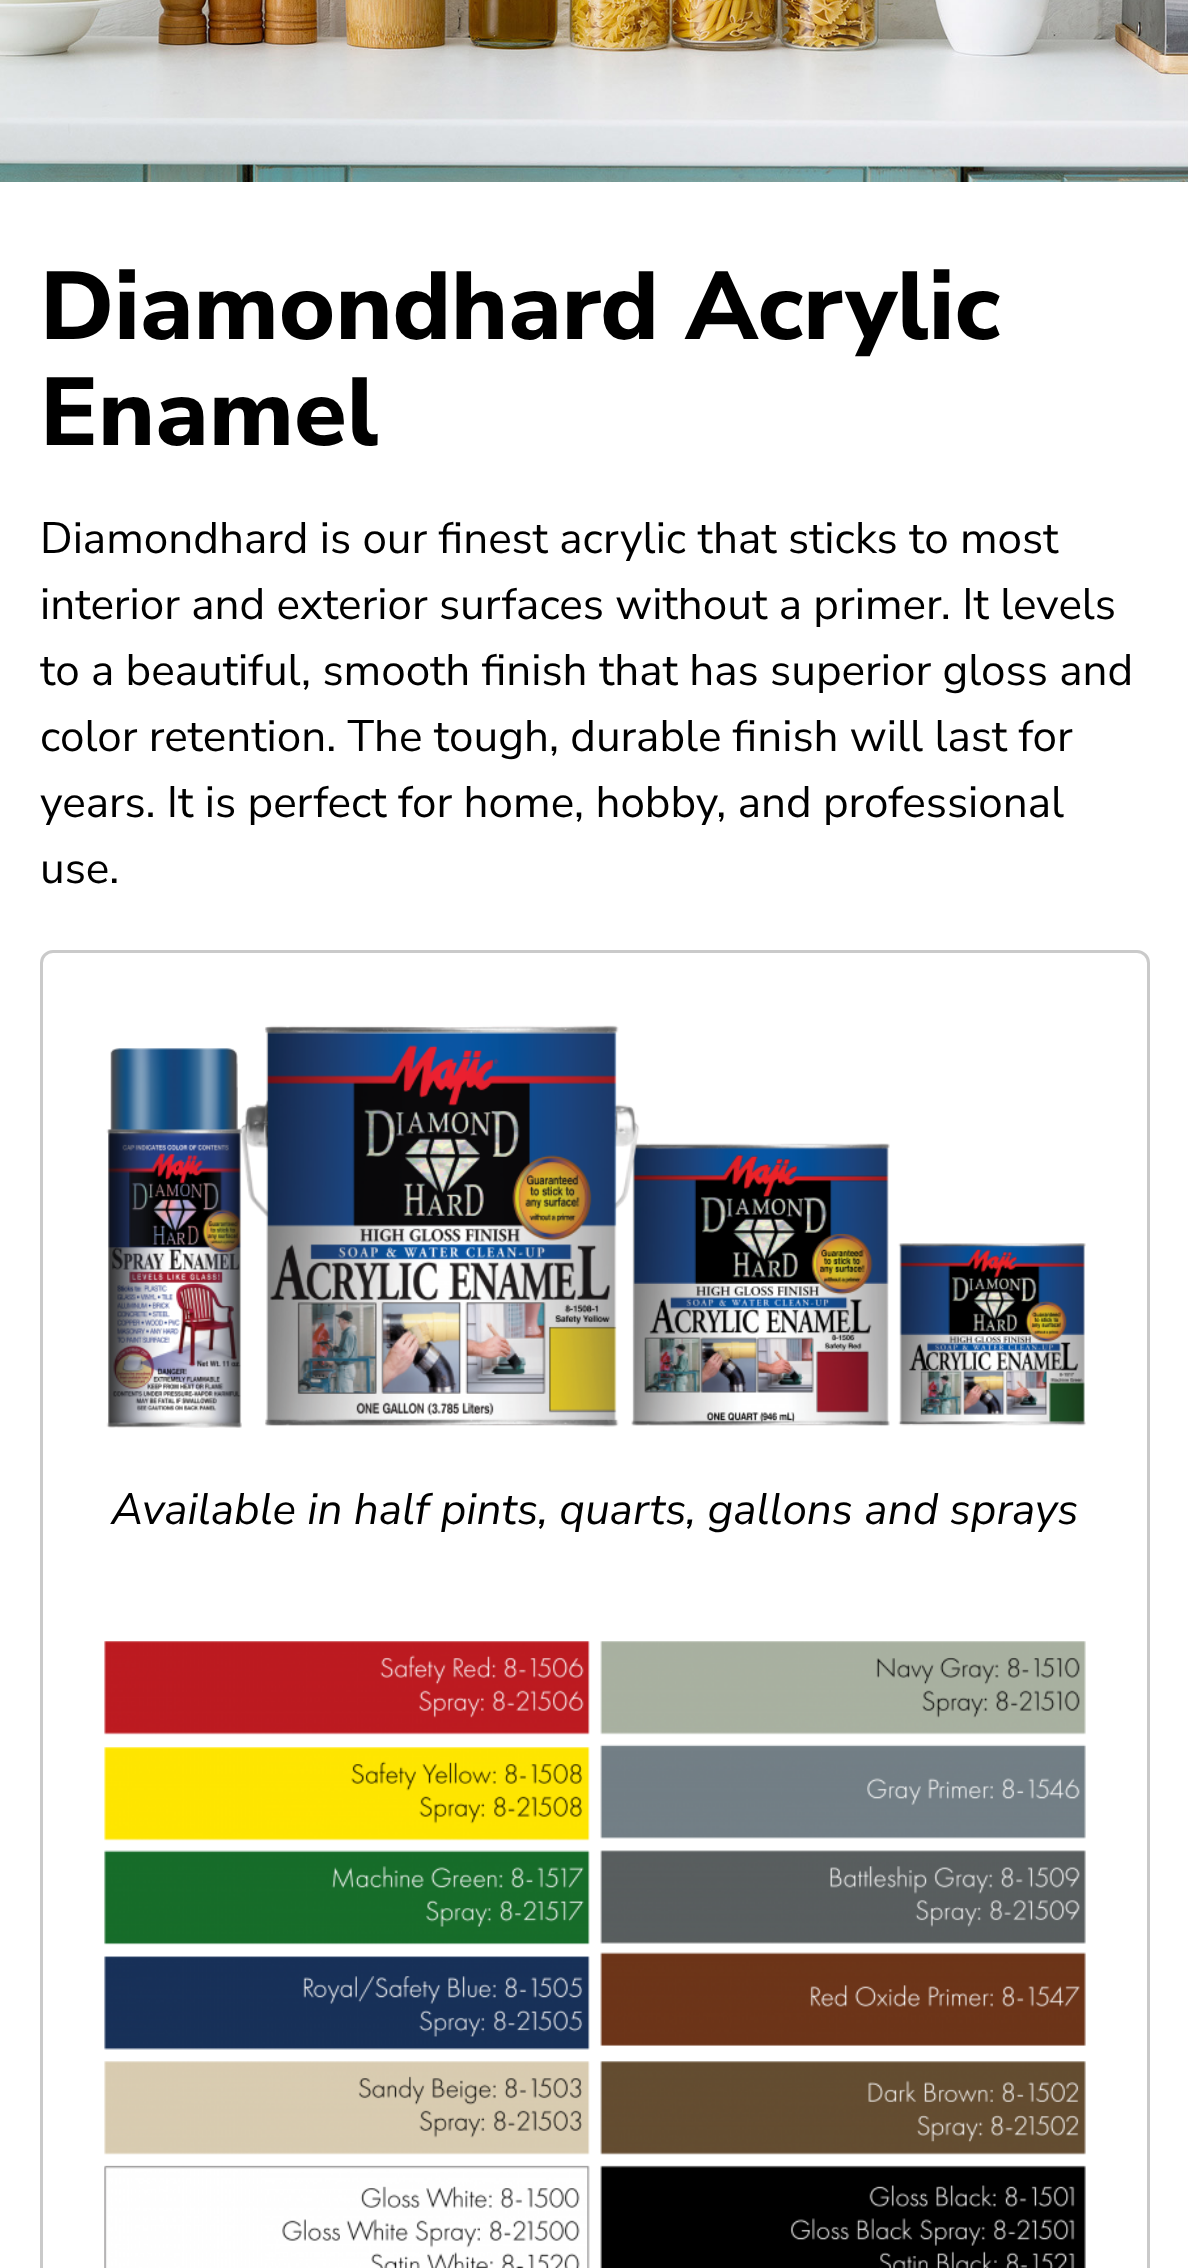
<!DOCTYPE html>
<meta charset="utf-8">
<style>body { margin: 0 } canvas { display: block }</style>
<canvas id="canvas" width="1188" height="2268"></canvas>
<script type="module">
  const canvas = document.getElementById("canvas");
  const g = canvas.getContext("2d");
  g.miterLimit = 4;
  g.fontKerning = "normal";
  function drawText(s, x, y, [font, color]) {
    g.font = font;
    g.fillStyle = color;
    g.fillText(s, x, y);
  }
  function fillBox(x, y, w, h, color) {
    g.fillStyle = color;
    g.fillRect(x, y, w, h);
  }
  async function drawPicture(src, x, y, w, h) {
    const img = new Image();
    img.src = src;
    await img.decode();
    g.drawImage(img, x, y, w, h);
  }

  const s1 = ["800 96px Nunito Sans", "#000000"];
  const s2 = ["44px Nunito Sans", "#000000"];
  const s3 = ["italic 44px Nunito Sans", "#000000"];

  fillBox(0, 0, 1188, 2268, "#FFFFFF");
  await drawPicture("pic1.png", 0, 0, 1188, 182);
  drawText("Diamondhard Acrylic", 40, 339, s1);
  drawText("Enamel", 40, 445, s1);
  drawText("Diamondhard is our finest acrylic that sticks to most", 40, 553, s2);
  drawText("interior and exterior surfaces without a primer. It levels", 40, 619, s2);
  drawText("to a beautiful, smooth finish that has superior gloss and", 40, 685, s2);
  drawText("color retention. The tough, durable finish will last for", 40, 751, s2);
  drawText("years. It is perfect for home, hobby, and professional", 40, 817, s2);
  drawText("use.", 40, 883, s2);
  g.beginPath();
  g.roundRect(41.5, 951.5, 1107, 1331, 11.5);
  g.strokeStyle = "#CACACA";
  g.lineWidth = 3;
  g.stroke();
  await drawPicture("pic2.png", 106, 1025, 980, 403);
  drawText("Available in half pints, quarts, gallons and sprays", 111, 1524, s3);
  await drawPicture("pic3.png", 104, 1641, 982, 627);
</script>
